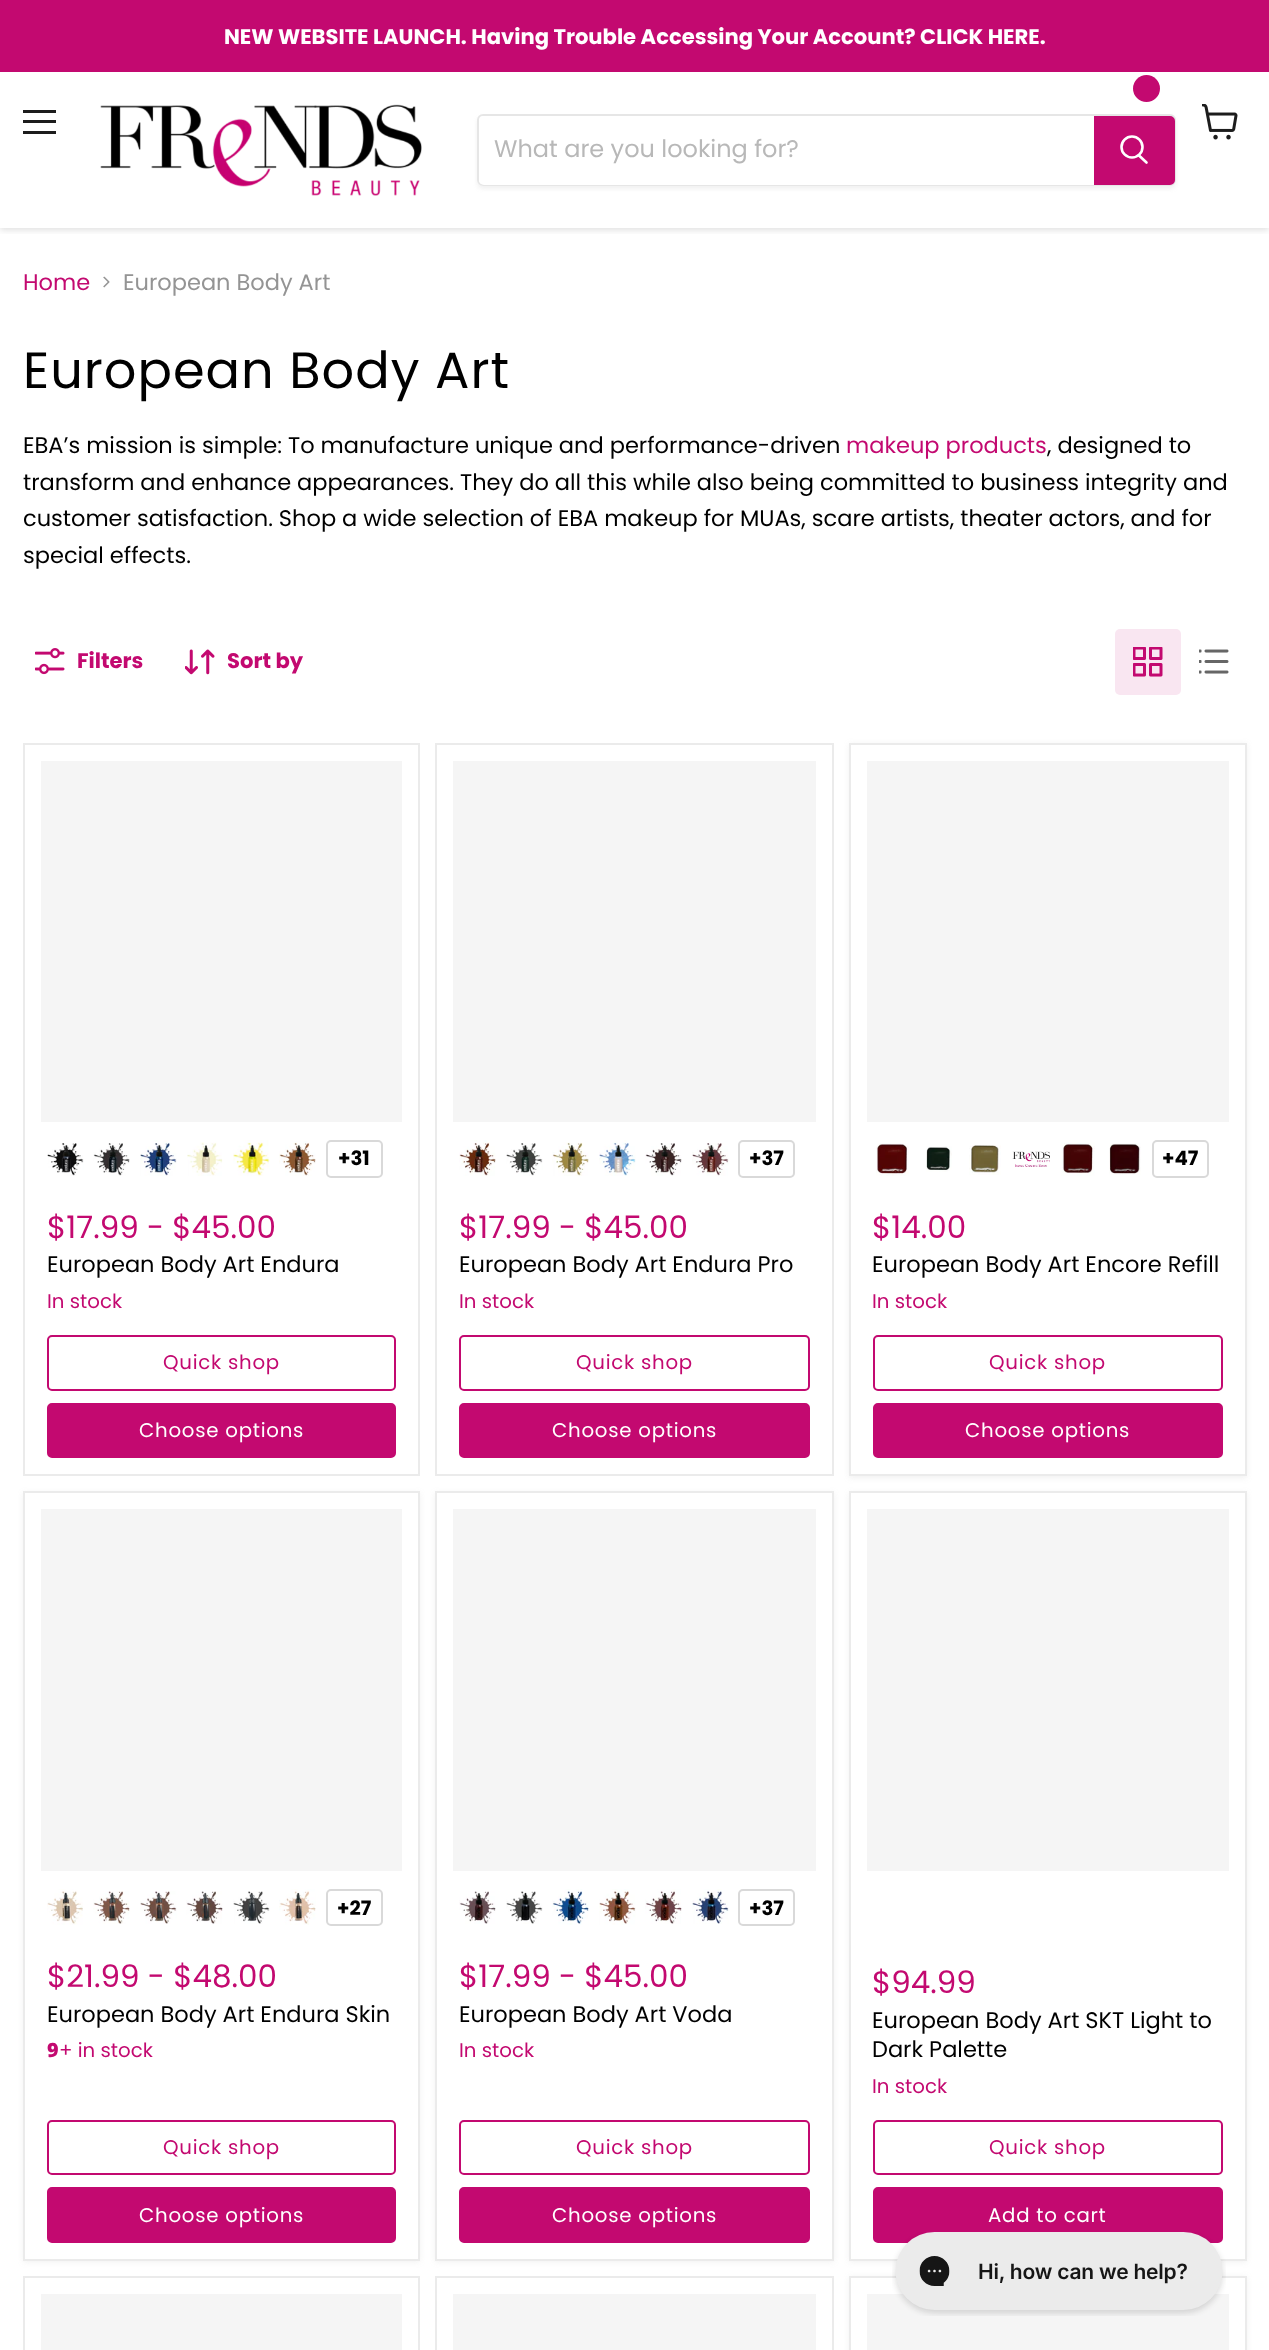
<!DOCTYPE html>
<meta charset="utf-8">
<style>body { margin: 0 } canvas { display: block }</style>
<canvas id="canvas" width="1269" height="2350"></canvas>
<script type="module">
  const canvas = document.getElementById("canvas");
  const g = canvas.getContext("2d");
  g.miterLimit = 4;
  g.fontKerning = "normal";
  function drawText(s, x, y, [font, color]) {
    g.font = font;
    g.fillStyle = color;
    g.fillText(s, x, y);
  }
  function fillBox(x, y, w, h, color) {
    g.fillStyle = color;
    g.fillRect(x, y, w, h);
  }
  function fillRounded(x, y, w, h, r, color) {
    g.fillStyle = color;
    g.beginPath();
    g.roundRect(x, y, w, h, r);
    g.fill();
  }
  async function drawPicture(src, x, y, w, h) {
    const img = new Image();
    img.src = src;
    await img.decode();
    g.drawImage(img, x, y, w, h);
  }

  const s1 = ["bold 21.1px Poppins", "#FFFFFF"];
  const s2 = ["24px Poppins", "#B8B8B8"];
  const s3 = ["22.5px Poppins", "#C30970"];
  const s4 = ["22.5px Poppins", "#949494"];
  const s5 = ["51px Poppins", "#000000"];
  const s6 = ["22.5px Poppins", "#000000"];
  const s7 = ["bold 21.1px Poppins", "#C30970"];
  const s8 = ["bold 19.75px Poppins", "#000000"];
  const s9 = ["31px Poppins", "#C30970"];
  const s10 = ["19.75px Poppins", "#C30970"];
  const s11 = ["19.75px Poppins", "#FFFFFF"];
  const s12 = ["900 19.75px Noto Sans", "#C30970"];

  fillBox(0, 0, 1269, 2350, "#FFFFFF");
  g.save();
  g.beginPath();
  g.rect(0, 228, 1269, 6);
  g.clip();
  g.fillStyle = "rgba(128, 128, 128, 0.25)";
  g.filter = "blur(3px)";
  g.beginPath();
  g.rect(0, 74, 1269, 156);
  g.fill();
  g.filter = "none";
  g.restore();
  fillBox(0, 0, 1269, 72, "#C30970");
  drawText("NEW WEBSITE LAUNCH. Having Trouble Accessing Your Account? CLICK HERE.", 224, 44, s1);
  fillBox(23, 110, 33, 3, "#1D1D1D");
  fillBox(23, 120, 33, 3, "#1D1D1D");
  fillBox(23, 131, 33, 3, "#1D1D1D");
  g.fillStyle = "#C30970";
  g.beginPath();
  g.arc(1146.5, 88.5, 13.5, 0, Math.PI * 2);
  g.fill();
  await drawPicture("pic1.png", 1202, 104, 36, 36);
  await drawPicture("pic2.png", 100, 104, 322, 92);
  g.save();
  g.beginPath();
  g.moveTo(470, 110);
  g.lineTo(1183, 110);
  g.lineTo(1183, 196);
  g.lineTo(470, 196);
  g.closePath();
  g.moveTo(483, 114);
  g.lineTo(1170, 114);
  g.bezierCurveTo(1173.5, 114, 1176, 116.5, 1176, 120);
  g.lineTo(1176, 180);
  g.bezierCurveTo(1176, 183.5, 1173.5, 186, 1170, 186);
  g.lineTo(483, 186);
  g.bezierCurveTo(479.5, 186, 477, 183.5, 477, 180);
  g.lineTo(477, 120);
  g.bezierCurveTo(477, 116.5, 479.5, 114, 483, 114);
  g.closePath();
  g.clip("evenodd");
  g.fillStyle = "rgba(128, 128, 128, 0.11)";
  g.filter = "blur(2px)";
  g.beginPath();
  g.roundRect(477, 117, 699, 72, 6);
  g.fill();
  g.filter = "none";
  g.restore();
  g.beginPath();
  g.roundRect(478, 115, 697, 70, 5);
  g.strokeStyle = "rgba(128, 128, 128, 0.2)";
  g.lineWidth = 2;
  g.stroke();
  g.fillStyle = "#FFFFFF";
  g.beginPath();
  g.roundRect(479, 116, 615, 69, [5, 0, 0, 5]);
  g.fill();
  drawText("What are you looking for?", 494, 157, s2);
  g.fillStyle = "#C30970";
  g.beginPath();
  g.roundRect(1095, 117, 79, 67, [0, 4, 4, 0]);
  g.fill();
  g.strokeStyle = "#C30970";
  g.stroke();
  g.beginPath();
  g.moveTo(1146.5, 162.5);
  g.lineTo(1139, 155.5);
  g.strokeStyle = "#FFFFFF";
  g.lineWidth = 2.6;
  g.lineCap = "round";
  g.stroke();
  g.beginPath();
  g.arc(1132, 147, 10.5, 0, Math.PI * 2);
  g.stroke();
  drawText("Home", 23, 290, s3);
  await drawPicture("pic3.png", 103, 276, 7, 12);
  drawText("European Body Art", 123, 290, s4);
  g.letterSpacing = "1px";
  drawText("European Body Art", 23, 388, s5);
  g.letterSpacing = "0px";
  drawText("EBA’s mission is simple: To manufacture unique and performance-driven", 23, 453, s6);
  drawText("makeup products", 846, 453, s3);
  drawText(", designed to", 1047, 453, s6);
  drawText("transform and enhance appearances. They do all this while also being committed to business integrity and", 23, 490, s6);
  drawText("customer satisfaction. Shop a wide selection of EBA makeup for MUAs, scare artists, theater actors, and for", 23, 526, s6);
  drawText("special effects.", 23, 563, s6);
  await drawPicture("pic4.png", 35, 648, 30, 27);
  drawText("Filters", 77, 668, s7);
  await drawPicture("pic5.png", 185, 649, 30, 26);
  drawText("Sort by", 227, 668, s7);
  fillRounded(1115, 629, 66, 66, 5, "#F9E6F1");
  await drawPicture("pic6.png", 1133, 647, 30, 30);
  await drawPicture("pic7.png", 1199, 649, 30, 25);
  g.strokeStyle = "#EBEBEB";
  g.lineWidth = 2;
  g.strokeRect(24, 744, 395, 731);
  fillBox(41, 761, 361, 361, "#F5F5F5");
  await drawPicture("pic8.png", 47, 1143, 37, 33);
  await drawPicture("pic9.png", 93, 1143, 37, 33);
  await drawPicture("pic10.png", 140, 1140, 37, 36);
  await drawPicture("pic11.png", 187, 1142, 36, 34);
  await drawPicture("pic12.png", 233, 1140, 37, 36);
  await drawPicture("pic13.png", 279, 1141, 37, 35);
  g.beginPath();
  g.roundRect(327, 1141, 55, 36, 4);
  g.strokeStyle = "#D9D9D9";
  g.stroke();
  drawText("+31", 338, 1165, s8);
  drawText("$17.99 - $45.00", 47, 1238, s9);
  drawText("European Body Art Endura", 47, 1272, s6);
  drawText("In stock", 47, 1308, s10);
  g.beginPath();
  g.roundRect(48, 1336, 347, 54, 4);
  g.strokeStyle = "#C30970";
  g.stroke();
  g.letterSpacing = "0.75px";
  drawText("Quick shop", 163, 1369, s10);
  g.beginPath();
  g.roundRect(48, 1404, 347, 53, 4);
  g.fill();
  g.stroke();
  drawText("Choose options", 139, 1437, s11);
  g.strokeStyle = "#EBEBEB";
  g.strokeRect(436, 744, 397, 731);
  fillBox(453, 761, 363, 361, "#F5F5F5");
  await drawPicture("pic14.png", 459, 1140, 37, 36);
  await drawPicture("pic15.png", 506, 1143, 37, 33);
  await drawPicture("pic16.png", 552, 1142, 37, 34);
  await drawPicture("pic17.png", 599, 1140, 37, 36);
  await drawPicture("pic18.png", 645, 1143, 37, 33);
  await drawPicture("pic19.png", 692, 1143, 37, 33);
  g.beginPath();
  g.roundRect(739, 1141, 55, 36, 4);
  g.strokeStyle = "#D9D9D9";
  g.stroke();
  g.letterSpacing = "0px";
  drawText("+37", 749, 1165, s8);
  drawText("$17.99 - $45.00", 459, 1238, s9);
  drawText("European Body Art Endura Pro", 459, 1272, s6);
  drawText("In stock", 459, 1308, s10);
  g.beginPath();
  g.roundRect(460, 1336, 349, 54, 4);
  g.strokeStyle = "#C30970";
  g.stroke();
  g.letterSpacing = "0.75px";
  drawText("Quick shop", 576, 1369, s10);
  g.beginPath();
  g.roundRect(460, 1404, 349, 53, 4);
  g.fill();
  g.stroke();
  drawText("Choose options", 552, 1437, s11);
  g.fillStyle = "rgba(128, 128, 128, 0.11)";
  g.filter = "blur(3px)";
  g.beginPath();
  g.rect(849, 744, 398, 734);
  g.fill();
  g.filter = "none";
  g.fillStyle = "#FFFFFF";
  g.beginPath();
  g.rect(850, 744, 396, 731);
  g.fill();
  g.strokeStyle = "#EBEBEB";
  g.stroke();
  fillBox(867, 761, 362, 361, "#F5F5F5");
  await drawPicture("pic20.png", 876, 1143, 33, 33);
  await drawPicture("pic21.png", 926, 1146, 26, 26);
  await drawPicture("pic22.png", 969, 1145, 32, 30);
  await drawPicture("pic23.png", 1012, 1151, 38, 16);
  await drawPicture("pic24.png", 1061, 1142, 34, 34);
  await drawPicture("pic25.png", 1109, 1143, 32, 32);
  g.beginPath();
  g.roundRect(1153, 1141, 55, 36, 4);
  g.strokeStyle = "#D9D9D9";
  g.stroke();
  g.letterSpacing = "0px";
  drawText("+47", 1162, 1165, s8);
  drawText("$14.00", 872, 1238, s9);
  drawText("European Body Art Encore Refill", 872, 1272, s6);
  drawText("In stock", 872, 1308, s10);
  g.beginPath();
  g.roundRect(874, 1336, 348, 54, 4);
  g.strokeStyle = "#C30970";
  g.stroke();
  g.letterSpacing = "0.75px";
  drawText("Quick shop", 989, 1369, s10);
  g.beginPath();
  g.roundRect(874, 1404, 348, 53, 4);
  g.fill();
  g.stroke();
  drawText("Choose options", 965, 1437, s11);
  g.fillStyle = "rgba(128, 128, 128, 0.11)";
  g.filter = "blur(3px)";
  g.beginPath();
  g.rect(23, 1493, 397, 769);
  g.fill();
  g.filter = "none";
  g.fillStyle = "#FFFFFF";
  g.beginPath();
  g.rect(24, 1492, 395, 768);
  g.fill();
  g.strokeStyle = "#EBEBEB";
  g.stroke();
  fillBox(41, 1509, 361, 362, "#F5F5F5");
  await drawPicture("pic26.png", 47, 1889, 36, 36);
  await drawPicture("pic27.png", 93, 1891, 37, 33);
  await drawPicture("pic28.png", 140, 1891, 37, 33);
  await drawPicture("pic29.png", 186, 1891, 37, 33);
  await drawPicture("pic30.png", 233, 1891, 37, 33);
  await drawPicture("pic31.png", 279, 1889, 37, 36);
  g.beginPath();
  g.roundRect(327, 1890, 55, 35, 4);
  g.strokeStyle = "#D9D9D9";
  g.stroke();
  g.letterSpacing = "0px";
  drawText("+27", 337, 1915, s8);
  drawText("$21.99 - $48.00", 47, 1987, s9);
  drawText("European Body Art Endura Skin", 47, 2022, s6);
  drawText("9", 47, 2057, s12);
  drawText("+ in stock", 59, 2057, s10);
  g.beginPath();
  g.roundRect(48, 2121, 347, 53, 4);
  g.strokeStyle = "#C30970";
  g.stroke();
  g.letterSpacing = "0.75px";
  drawText("Quick shop", 163, 2154, s10);
  g.beginPath();
  g.roundRect(48, 2188, 347, 54, 4);
  g.fill();
  g.stroke();
  drawText("Choose options", 139, 2222, s11);
  g.fillStyle = "rgba(128, 128, 128, 0.11)";
  g.filter = "blur(3px)";
  g.beginPath();
  g.rect(435, 1493, 399, 769);
  g.fill();
  g.filter = "none";
  g.fillStyle = "#FFFFFF";
  g.beginPath();
  g.rect(436, 1492, 397, 768);
  g.fill();
  g.strokeStyle = "#EBEBEB";
  g.stroke();
  fillBox(453, 1509, 363, 362, "#F5F5F5");
  await drawPicture("pic32.png", 459, 1891, 37, 33);
  await drawPicture("pic33.png", 506, 1891, 37, 33);
  await drawPicture("pic34.png", 552, 1889, 37, 36);
  await drawPicture("pic35.png", 599, 1889, 37, 36);
  await drawPicture("pic36.png", 645, 1889, 37, 35);
  await drawPicture("pic37.png", 692, 1889, 37, 35);
  g.beginPath();
  g.roundRect(739, 1890, 55, 35, 4);
  g.strokeStyle = "#D9D9D9";
  g.stroke();
  g.letterSpacing = "0px";
  drawText("+37", 749, 1915, s8);
  drawText("$17.99 - $45.00", 459, 1987, s9);
  drawText("European Body Art Voda", 459, 2022, s6);
  drawText("In stock", 459, 2057, s10);
  g.beginPath();
  g.roundRect(460, 2121, 349, 53, 4);
  g.strokeStyle = "#C30970";
  g.stroke();
  g.letterSpacing = "0.75px";
  drawText("Quick shop", 576, 2154, s10);
  g.beginPath();
  g.roundRect(460, 2188, 349, 54, 4);
  g.fill();
  g.stroke();
  drawText("Choose options", 552, 2222, s11);
  g.fillStyle = "rgba(128, 128, 128, 0.11)";
  g.filter = "blur(3px)";
  g.beginPath();
  g.rect(849, 1493, 398, 769);
  g.fill();
  g.filter = "none";
  g.fillStyle = "#FFFFFF";
  g.beginPath();
  g.rect(850, 1492, 396, 768);
  g.fill();
  g.strokeStyle = "#EBEBEB";
  g.stroke();
  fillBox(867, 1509, 362, 362, "#F5F5F5");
  g.letterSpacing = "0px";
  drawText("$94.99", 872, 1993, s9);
  drawText("European Body Art SKT Light to", 872, 2028, s6);
  drawText("Dark Palette", 872, 2057, s6);
  drawText("In stock", 872, 2093, s10);
  g.beginPath();
  g.roundRect(874, 2121, 348, 53, 4);
  g.strokeStyle = "#C30970";
  g.stroke();
  g.letterSpacing = "0.75px";
  drawText("Quick shop", 989, 2154, s10);
  g.beginPath();
  g.roundRect(874, 2188, 348, 54, 4);
  g.fill();
  g.stroke();
  drawText("Add to cart", 988, 2222, s11);
  g.strokeStyle = "#EBEBEB";
  g.strokeRect(24, 2277, 395, 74);
  fillBox(41, 2294, 361, 56, "#F5F5F5");
  g.strokeRect(436, 2277, 397, 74);
  fillBox(453, 2294, 363, 56, "#F5F5F5");
  g.fillStyle = "rgba(128, 128, 128, 0.11)";
  g.filter = "blur(3px)";
  g.beginPath();
  g.rect(849, 2277, 398, 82);
  g.fill();
  g.filter = "none";
  g.fillStyle = "#FFFFFF";
  g.beginPath();
  g.rect(850, 2277, 396, 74);
  g.fill();
  g.stroke();
  fillBox(867, 2294, 362, 56, "#F5F5F5");
  await drawPicture("pic38.png", 892, 2232, 334, 84);
</script>
